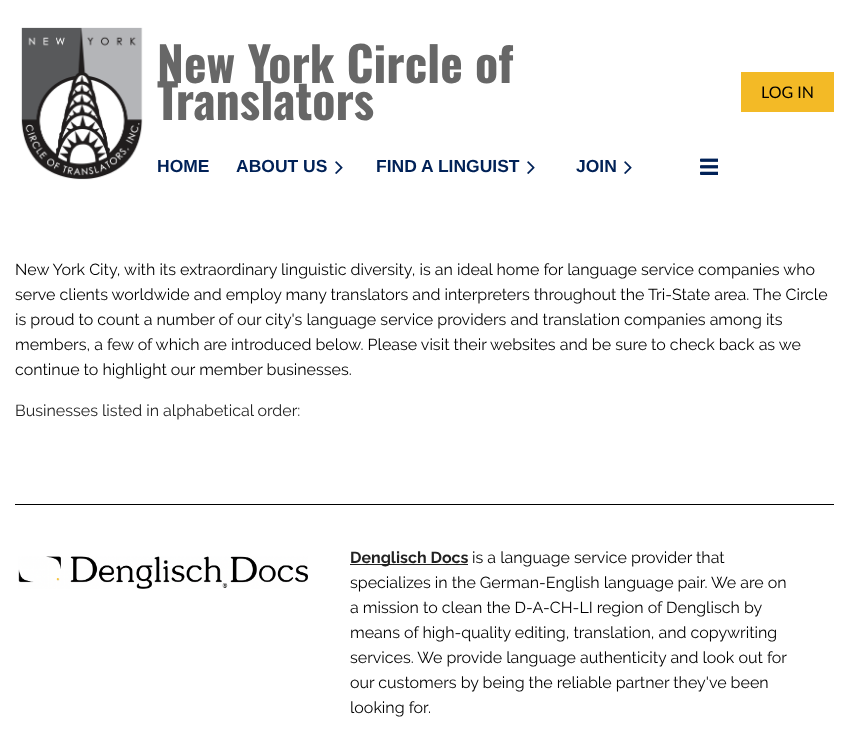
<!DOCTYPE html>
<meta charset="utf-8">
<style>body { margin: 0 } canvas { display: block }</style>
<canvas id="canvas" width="849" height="730"></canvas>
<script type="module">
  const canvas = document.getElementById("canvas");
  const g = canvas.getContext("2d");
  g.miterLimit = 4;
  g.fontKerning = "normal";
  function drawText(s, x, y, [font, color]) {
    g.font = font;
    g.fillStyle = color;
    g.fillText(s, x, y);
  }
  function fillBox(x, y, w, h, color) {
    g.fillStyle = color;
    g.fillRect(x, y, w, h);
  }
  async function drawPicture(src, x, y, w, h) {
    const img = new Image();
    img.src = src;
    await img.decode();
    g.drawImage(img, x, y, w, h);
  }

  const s1 = ["bold 48px Oswald", "#676767"];
  const s2 = ["bold 17.5px Liberation Sans", "#002157"];
  const s3 = ["16px Lato", "#000000"];
  const s4 = ["16px Raleway", "#000000"];
  const s5 = ["16px Raleway", "#222222"];
  const s6 = ["bold 16px Raleway", "#222222"];

  fillBox(0, 0, 849, 730, "#FFFFFF");
  await drawPicture("pic1.png", 21, 27, 122, 153);
  drawText("New York Circle of", 157, 83, s1);
  drawText("Translators", 157, 120, s1);
  drawText("HOME", 157, 172, s2);
  drawText("ABOUT US", 236, 172, s2);
  await drawPicture("pic2.png", 335, 161, 8, 13);
  drawText("FIND A LINGUIST", 376, 172, s2);
  await drawPicture("pic2.png", 527, 161, 8, 13);
  drawText("JOIN", 576, 172, s2);
  await drawPicture("pic2.png", 624, 161, 8, 13);
  await drawPicture("pic3.png", 700, 158, 18, 17);
  fillBox(741, 72, 93, 40, "#F3BA26");
  drawText("LOG IN", 761, 98, s3);
  drawText("New York City, with its extraordinary linguistic diversity, is an ideal home for language service companies who", 15, 275, s4);
  drawText("serve clients worldwide and employ many translators and interpreters throughout the Tri-State area. The Circle", 15, 300, s4);
  drawText("is proud to count a number of our city's language service providers and translation companies among its", 15, 325, s4);
  drawText("members, a few of which are introduced below. Please visit their websites and be sure to check back as we", 15, 350, s4);
  drawText("continue to highlight our member businesses.", 15, 375, s4);
  drawText("Businesses listed in alphabetical order:", 15, 416, s5);
  fillBox(15, 504, 819, 1, "#000000");
  await drawPicture("pic4.png", 18, 556, 290, 33);
  fillBox(350, 564, 118, 1, "#222222");
  drawText("Denglisch Docs", 350, 563, s6);
  drawText("is a language service provider that", 472, 563, s4);
  drawText("specializes in the German-English language pair. We are on", 350, 588, s4);
  drawText("a mission to clean the D-A-CH-LI region of Denglisch by", 350, 613, s4);
  drawText("means of high-quality editing, translation, and copywriting", 350, 638, s4);
  drawText("services. We provide language authenticity and look out for", 350, 663, s4);
  drawText("our customers by being the reliable partner they've been", 350, 688, s4);
  drawText("looking for.", 350, 713, s4);
</script>
